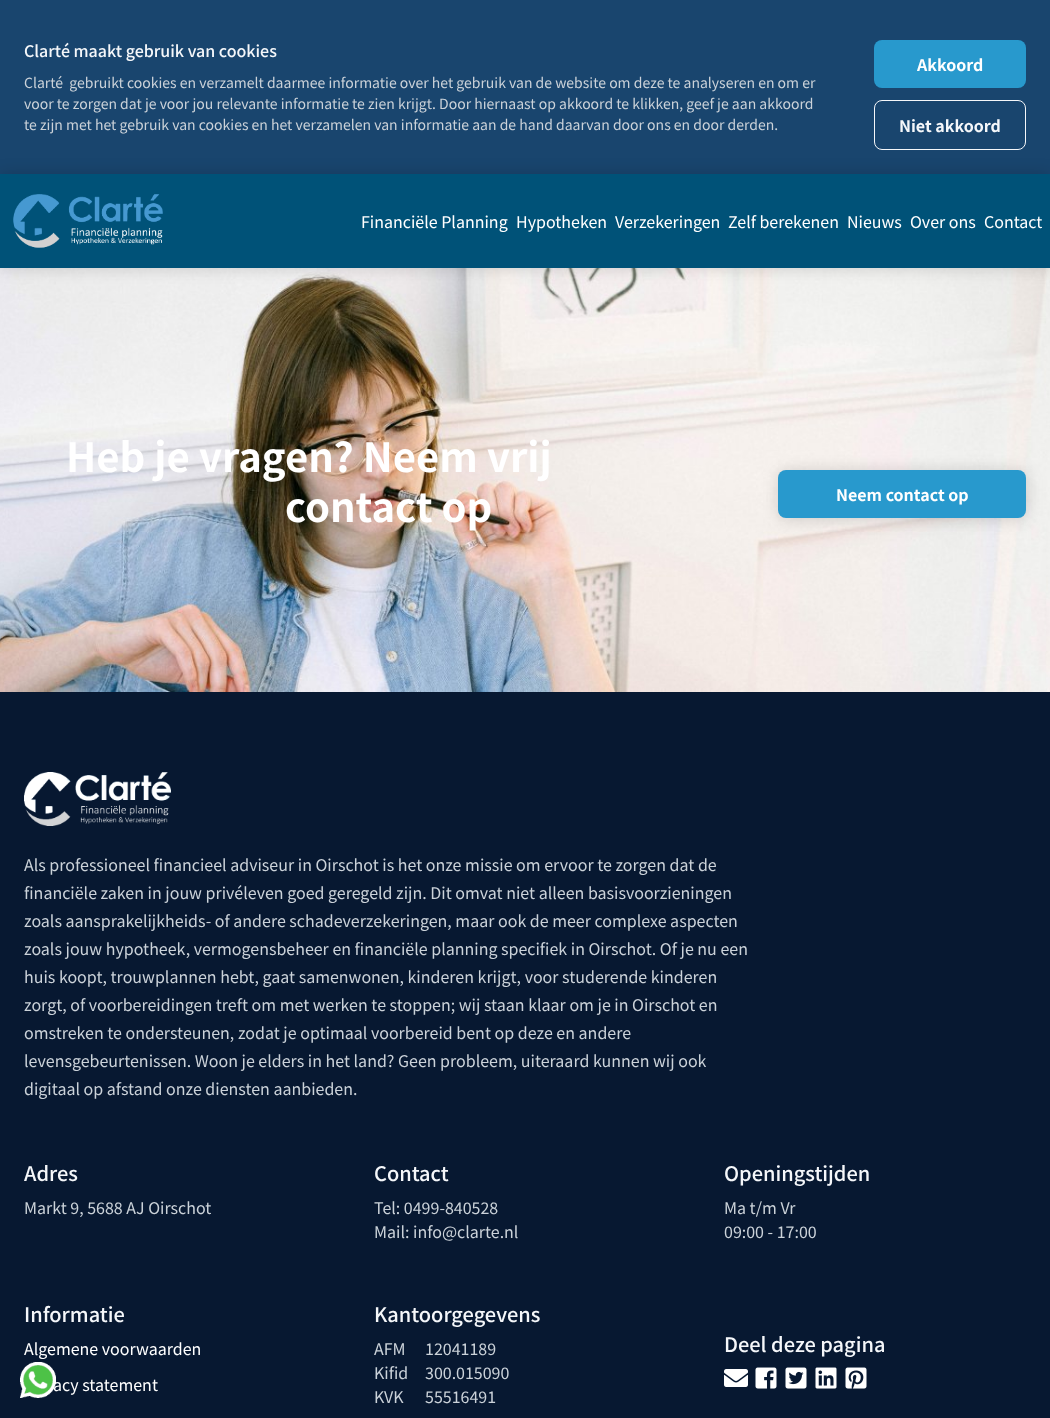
<!DOCTYPE html>
<meta charset="utf-8">
<style>body { margin: 0 } canvas { display: block }</style>
<canvas id="canvas" width="1050" height="1418"></canvas>
<script type="module">
  const canvas = document.getElementById("canvas");
  const g = canvas.getContext("2d");
  g.miterLimit = 4;
  g.fontKerning = "normal";
  function drawText(s, x, y, [font, color]) {
    g.font = font;
    g.fillStyle = color;
    g.fillText(s, x, y);
  }
  function fillBox(x, y, w, h, color) {
    g.fillStyle = color;
    g.fillRect(x, y, w, h);
  }
  function fillRounded(x, y, w, h, r, color) {
    g.fillStyle = color;
    g.beginPath();
    g.roundRect(x, y, w, h, r);
    g.fill();
  }
  async function drawPicture(src, x, y, w, h) {
    const img = new Image();
    img.src = src;
    await img.decode();
    g.drawImage(img, x, y, w, h);
  }

  const s1 = ["500 16px Noto Sans JP", "#F5F7FA"];
  const s2 = ["14px Noto Sans JP", "#CBD2D9"];
  const s3 = ["bold 16px Noto Sans JP", "#FFFFFF"];
  const s4 = ["bold 16px Noto Sans JP", "#F5F7FA"];
  const s5 = ["16px Noto Sans JP", "#FFFFFF"];
  const s6 = ["bold 40px Noto Sans JP", "#FFFFFF"];
  const s7 = ["16px Noto Sans JP", "#CBD2D9"];
  const s8 = ["500 20px Noto Sans JP", "#F5F7FA"];

  fillBox(0, 0, 1050, 1418, "#FFFFFF");
  fillBox(0, 0, 1050, 174, "#19456E");
  drawText("Clarté maakt gebruik van cookies", 24, 57, s1);
  drawText("Clarté  gebruikt cookies en verzamelt daarmee informatie over het gebruik van de website om deze te analyseren en om er", 24, 88, s2);
  drawText("voor te zorgen dat je voor jou relevante informatie te zien krijgt. Door hiernaast op akkoord te klikken, geef je aan akkoord", 24, 109, s2);
  drawText("te zijn met het gebruik van cookies en het verzamelen van informatie aan de hand daarvan door ons en door derden.", 24, 130, s2);
  fillRounded(874, 40, 152, 48, 8, "#2899CD");
  drawText("Akkoord", 917, 71, s3);
  g.beginPath();
  g.roundRect(874.5, 100.5, 151, 49, 7.5);
  g.strokeStyle = "#F5F7FA";
  g.stroke();
  drawText("Niet akkoord", 899, 132, s4);
  await drawPicture("pic2.png", 0, 268, 1050, 424);
  g.fillStyle = "rgba(0, 0, 0, 0.16)";
  g.filter = "blur(8px)";
  g.beginPath();
  g.rect(0, 174, 1050, 94);
  g.fill();
  g.filter = "none";
  fillBox(0, 174, 1050, 94, "#005278");
  await drawPicture("pic1.png", 13, 194, 150, 54);
  drawText("Financiële Planning", 361, 228, s5);
  drawText("Hypotheken", 516, 228, s5);
  drawText("Verzekeringen", 615, 228, s5);
  drawText("Zelf berekenen", 728, 228, s5);
  drawText("Nieuws", 847, 228, s5);
  drawText("Over ons", 910, 228, s5);
  drawText("Contact", 984, 228, s5);
  drawText("Heb je vragen? Neem vrij", 66, 472, s6);
  drawText("contact op", 285, 522, s6);
  g.fillStyle = "rgba(0, 0, 0, 0.16)";
  g.filter = "blur(8px)";
  g.beginPath();
  g.roundRect(779, 471, 248, 48, 8);
  g.fill();
  g.filter = "none";
  fillRounded(778, 470, 248, 48, 8, "#2899CD");
  drawText("Neem contact op", 836, 501, s3);
  fillBox(0, 692, 1050, 726, "#071831");
  await drawPicture("pic3.png", 24, 772, 147, 54);
  drawText("Als professioneel financieel adviseur in Oirschot is het onze missie om ervoor te zorgen dat de", 24, 871, s7);
  drawText("financiële zaken in jouw privéleven goed geregeld zijn. Dit omvat niet alleen basisvoorzieningen", 24, 899, s7);
  drawText("zoals aansprakelijkheids- of andere schadeverzekeringen, maar ook de meer complexe aspecten", 24, 927, s7);
  drawText("zoals jouw hypotheek, vermogensbeheer en financiële planning specifiek in Oirschot. Of je nu een", 24, 955, s7);
  drawText("huis koopt, trouwplannen hebt, gaat samenwonen, kinderen krijgt, voor studerende kinderen", 24, 983, s7);
  drawText("zorgt, of voorbereidingen treft om met werken te stoppen; wij staan klaar om je in Oirschot en", 24, 1011, s7);
  drawText("omstreken te ondersteunen, zodat je optimaal voorbereid bent op deze en andere", 24, 1039, s7);
  drawText("levensgebeurtenissen. Woon je elders in het land? Geen probleem, uiteraard kunnen wij ook", 24, 1067, s7);
  drawText("digitaal op afstand onze diensten aanbieden.", 24, 1095, s7);
  drawText("Adres", 24, 1181, s8);
  drawText("Markt 9, 5688 AJ Oirschot", 24, 1214, s7);
  drawText("Contact", 374, 1181, s8);
  drawText("Tel: 0499-840528", 374, 1214, s7);
  drawText("Mail: info@clarte.nl", 374, 1238, s7);
  drawText("Openingstijden", 724, 1181, s8);
  drawText("Ma t/m Vr", 724, 1214, s7);
  drawText("09:00 - 17:00", 724, 1238, s7);
  drawText("Informatie", 24, 1322, s8);
  drawText("Algemene voorwaarden", 24, 1355, s5);
  drawText("acy statement", 53, 1391, s5);
  drawText("Kantoorgegevens", 374, 1322, s8);
  drawText("AFM", 374, 1355, s7);
  drawText("12041189", 425, 1355, s7);
  drawText("Kifid", 374, 1379, s7);
  drawText("300.015090", 425, 1379, s7);
  drawText("KVK", 374, 1403, s7);
  drawText("55516491", 425, 1403, s7);
  drawText("Deel deze pagina", 724, 1352, s8);
  await drawPicture("pic4.png", 724, 1369, 24, 18);
  await drawPicture("pic5.png", 755, 1367, 22, 22);
  await drawPicture("pic6.png", 785, 1367, 22, 22);
  await drawPicture("pic7.png", 815, 1367, 22, 22);
  await drawPicture("pic8.png", 845, 1367, 22, 22);
  await drawPicture("pic9.png", 20, 1362, 36, 36);
</script>
